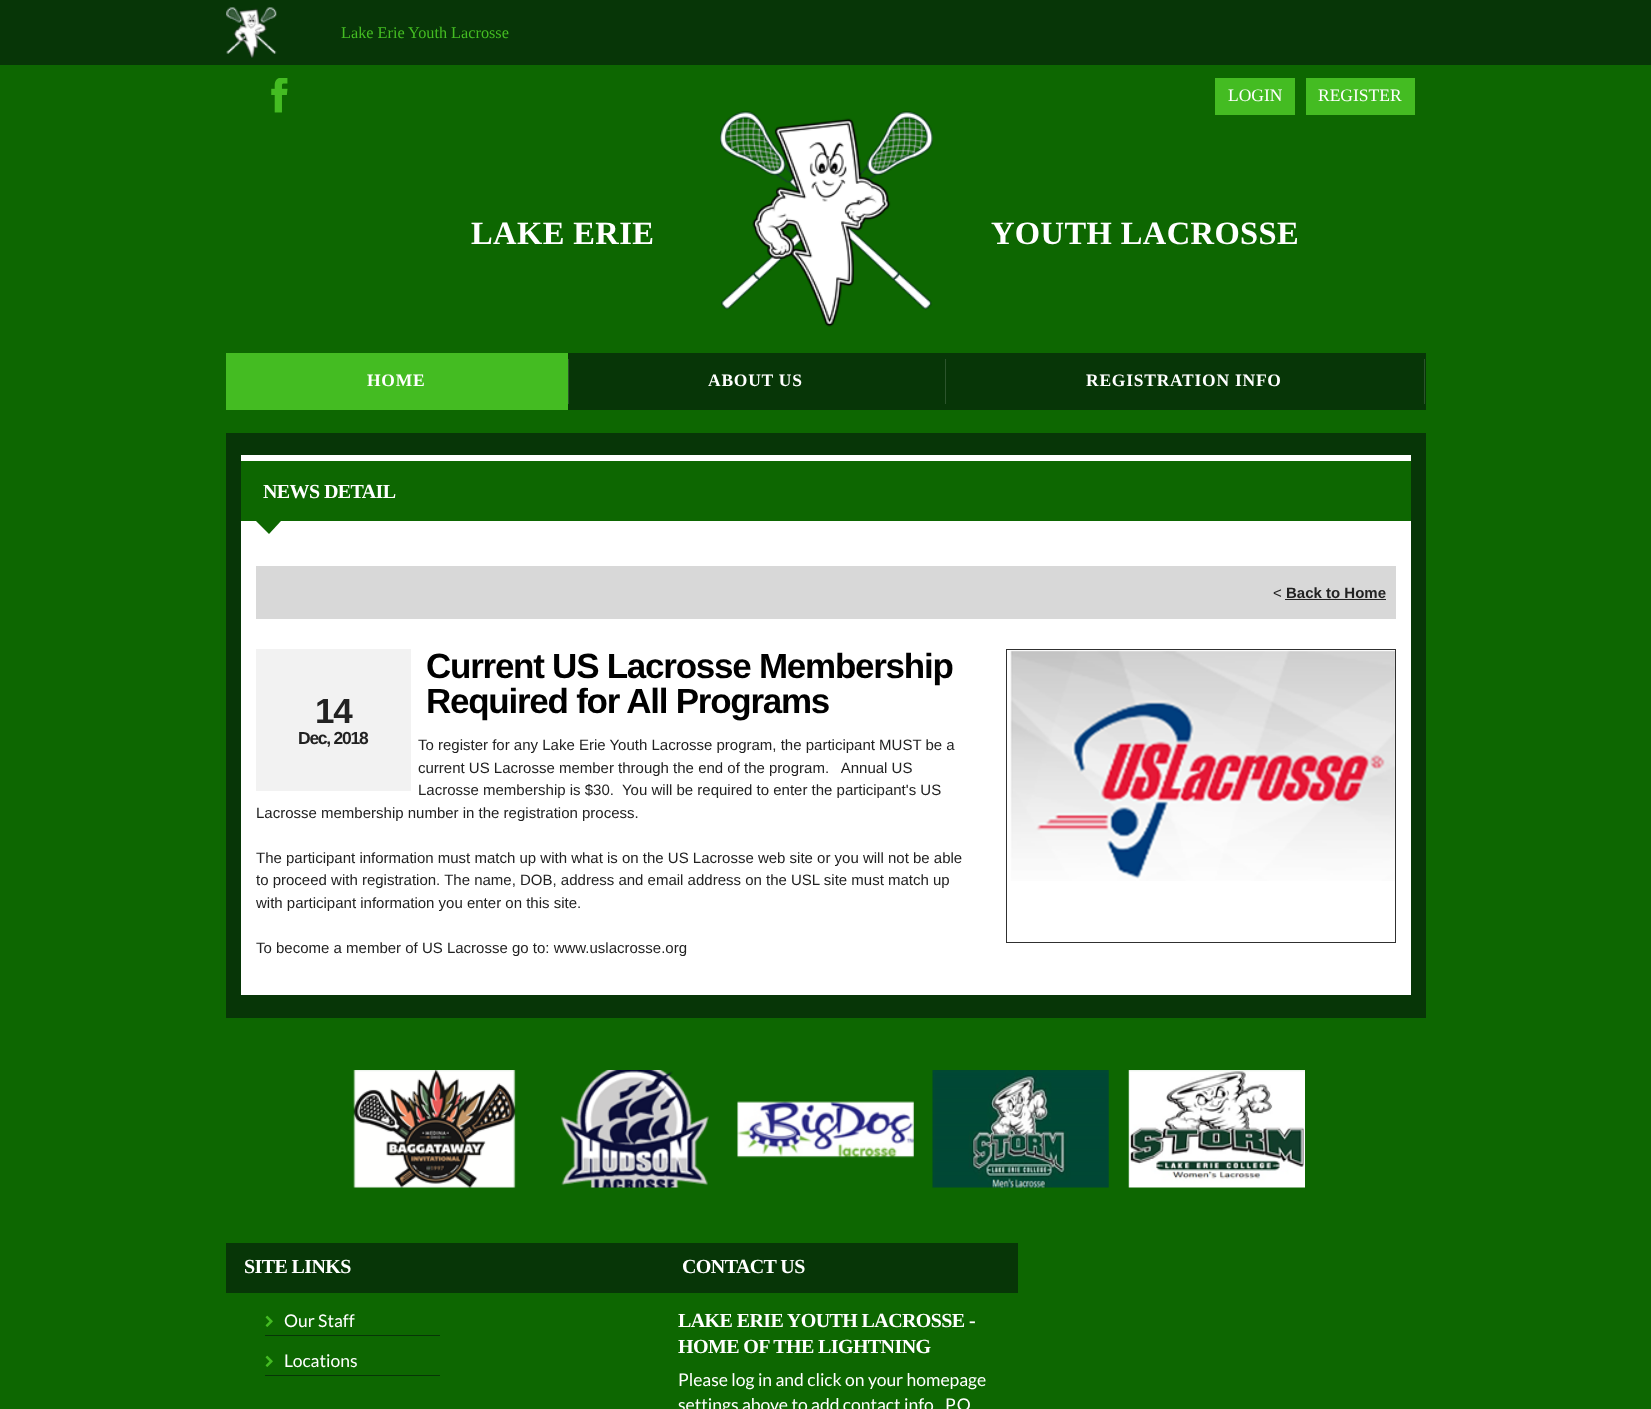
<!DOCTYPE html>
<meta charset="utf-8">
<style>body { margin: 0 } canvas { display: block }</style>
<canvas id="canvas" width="1651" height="1409"></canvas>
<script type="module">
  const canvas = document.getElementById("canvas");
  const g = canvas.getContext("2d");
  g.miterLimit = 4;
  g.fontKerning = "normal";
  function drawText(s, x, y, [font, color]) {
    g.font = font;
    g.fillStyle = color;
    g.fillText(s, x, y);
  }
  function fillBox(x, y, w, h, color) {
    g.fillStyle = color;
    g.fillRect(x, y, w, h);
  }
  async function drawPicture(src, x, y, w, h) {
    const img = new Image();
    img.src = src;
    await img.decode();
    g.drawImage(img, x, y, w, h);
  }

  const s1 = ["16.25px Liberation Serif", "#44BC22"];
  const s2 = ["17.5px Liberation Serif", "#FFFFFF"];
  const s3 = ["bold 32.5px Liberation Serif", "#FFFFFF"];
  const s4 = ["bold 17.5px Liberation Serif", "#FFFFFF"];
  const s5 = ["bold 20px Liberation Serif", "#FFFFFF"];
  const s6 = ["15px Liberation Sans", "#222222"];
  const s7 = ["bold 15px Liberation Sans", "#222222"];
  const s8 = ["bold 35px Liberation Sans", "#222222"];
  const s9 = ["bold 17.5px Liberation Sans", "#222222"];
  const s10 = ["bold 35px Liberation Sans", "#000000"];
  const s11 = ["17.5px Lato", "#FFFFFF"];

  fillBox(0, 0, 1651, 1409, "#0D6701");
  fillBox(0, 0, 1651, 65, "#073607");
  await drawPicture("pic1.png", 226, 7, 51, 51);
  drawText("Lake Erie Youth Lacrosse", 341, 38, s1);
  await drawPicture("pic2.png", 271, 78, 17, 35);
  fillBox(1215, 78, 80, 37, "#44BC22");
  drawText("LOGIN", 1228, 101, s2);
  fillBox(1306, 78, 109, 37, "#44BC22");
  drawText("REGISTER", 1318, 101, s2);
  await drawPicture("pic3.png", 720, 111, 213, 216);
  g.letterSpacing = "0.4px";
  drawText("LAKE ERIE", 471, 244, s3);
  drawText("YOUTH LACROSSE", 991, 244, s3);
  fillBox(568, 353, 858, 57, "#073607");
  fillBox(226, 353, 342, 57, "#44BC22");
  g.letterSpacing = "0.75px";
  drawText("HOME", 367, 386, s4);
  fillBox(568, 359, 1, 45, "#2C542C");
  drawText("ABOUT US", 708, 386, s4);
  fillBox(945, 359, 1, 45, "#2C542C");
  drawText("REGISTRATION INFO", 1086, 386, s4);
  fillBox(1424, 359, 1, 45, "#2C542C");
  fillBox(226, 433, 1200, 585, "#073607");
  fillBox(241, 461, 1170, 60, "#0D6701");
  fillBox(241, 455, 1170, 6, "#FFFFFF");
  g.letterSpacing = "-0.6px";
  drawText("NEWS DETAIL", 263, 498, s5);
  fillBox(241, 521, 1170, 474, "#FFFFFF");
  g.fillStyle = "#0D6701";
  g.beginPath();
  g.moveTo(256, 521);
  g.lineTo(281, 521);
  g.lineTo(269, 534);
  g.closePath();
  g.fill();
  fillBox(256, 566, 1140, 53, "#D8D8D8");
  g.letterSpacing = "0px";
  drawText("<", 1273, 598, s6);
  drawText("Back to Home", 1286, 598, s7);
  fillBox(1285, 599, 101, 1, "#222222");
  fillBox(256, 649, 155, 142, "#F2F2F2");
  g.letterSpacing = "-1.25px";
  drawText("14", 315, 723, s8);
  drawText("Dec, 2018", 298, 744, s9);
  drawText("Current US Lacrosse Membership", 426, 678, s10);
  drawText("Required for All Programs", 426, 713, s10);
  g.strokeStyle = "#303030";
  g.strokeRect(1006.5, 649.5, 389, 293);
  await drawPicture("pic4.png", 1010, 650, 385, 231);
  g.letterSpacing = "0px";
  drawText("To register for any Lake Erie Youth Lacrosse program, the participant MUST be a", 418, 750, s6);
  drawText("current US Lacrosse member through the end of the program.   Annual US", 418, 773, s6);
  drawText("Lacrosse membership is $30.  You will be required to enter the participant's US", 418, 795, s6);
  drawText("Lacrosse membership number in the registration process.", 256, 818, s6);
  drawText("The participant information must match up with what is on the US Lacrosse web site or you will not be able", 256, 863, s6);
  drawText("to proceed with registration. The name, DOB, address and email address on the USL site must match up", 256, 885, s6);
  drawText("with participant information you enter on this site.", 256, 908, s6);
  drawText("To become a member of US Lacrosse go to: www.uslacrosse.org", 256, 953, s6);
  await drawPicture("pic5.png", 353, 1070, 163, 118);
  await drawPicture("pic6.png", 560, 1070, 149, 118);
  await drawPicture("pic7.png", 737, 1101, 177, 57);
  await drawPicture("pic8.png", 932, 1070, 177, 118);
  await drawPicture("pic9.png", 1128, 1070, 177, 118);
  fillBox(226, 1243, 792, 50, "#073607");
  g.letterSpacing = "-0.6px";
  drawText("SITE LINKS", 244, 1273, s5);
  fillBox(265, 1335, 175, 1, "#073607");
  await drawPicture("pic10.png", 265, 1315, 8, 12);
  g.letterSpacing = "0px";
  drawText("Our Staff", 284, 1327, s11);
  fillBox(265, 1375, 175, 1, "#073607");
  await drawPicture("pic10.png", 265, 1355, 8, 12);
  drawText("Locations", 284, 1367, s11);
  g.letterSpacing = "-0.6px";
  drawText("CONTACT US", 682, 1273, s5);
  drawText("LAKE ERIE YOUTH LACROSSE -", 678, 1327, s5);
  drawText("HOME OF THE LIGHTNING", 678, 1353, s5);
  g.letterSpacing = "0px";
  drawText("Please log in and click on your homepage", 678, 1386, s11);
  drawText("settings above to add contact info", 678, 1411, s11);
  drawText("P.O", 945, 1411, s11);
</script>
